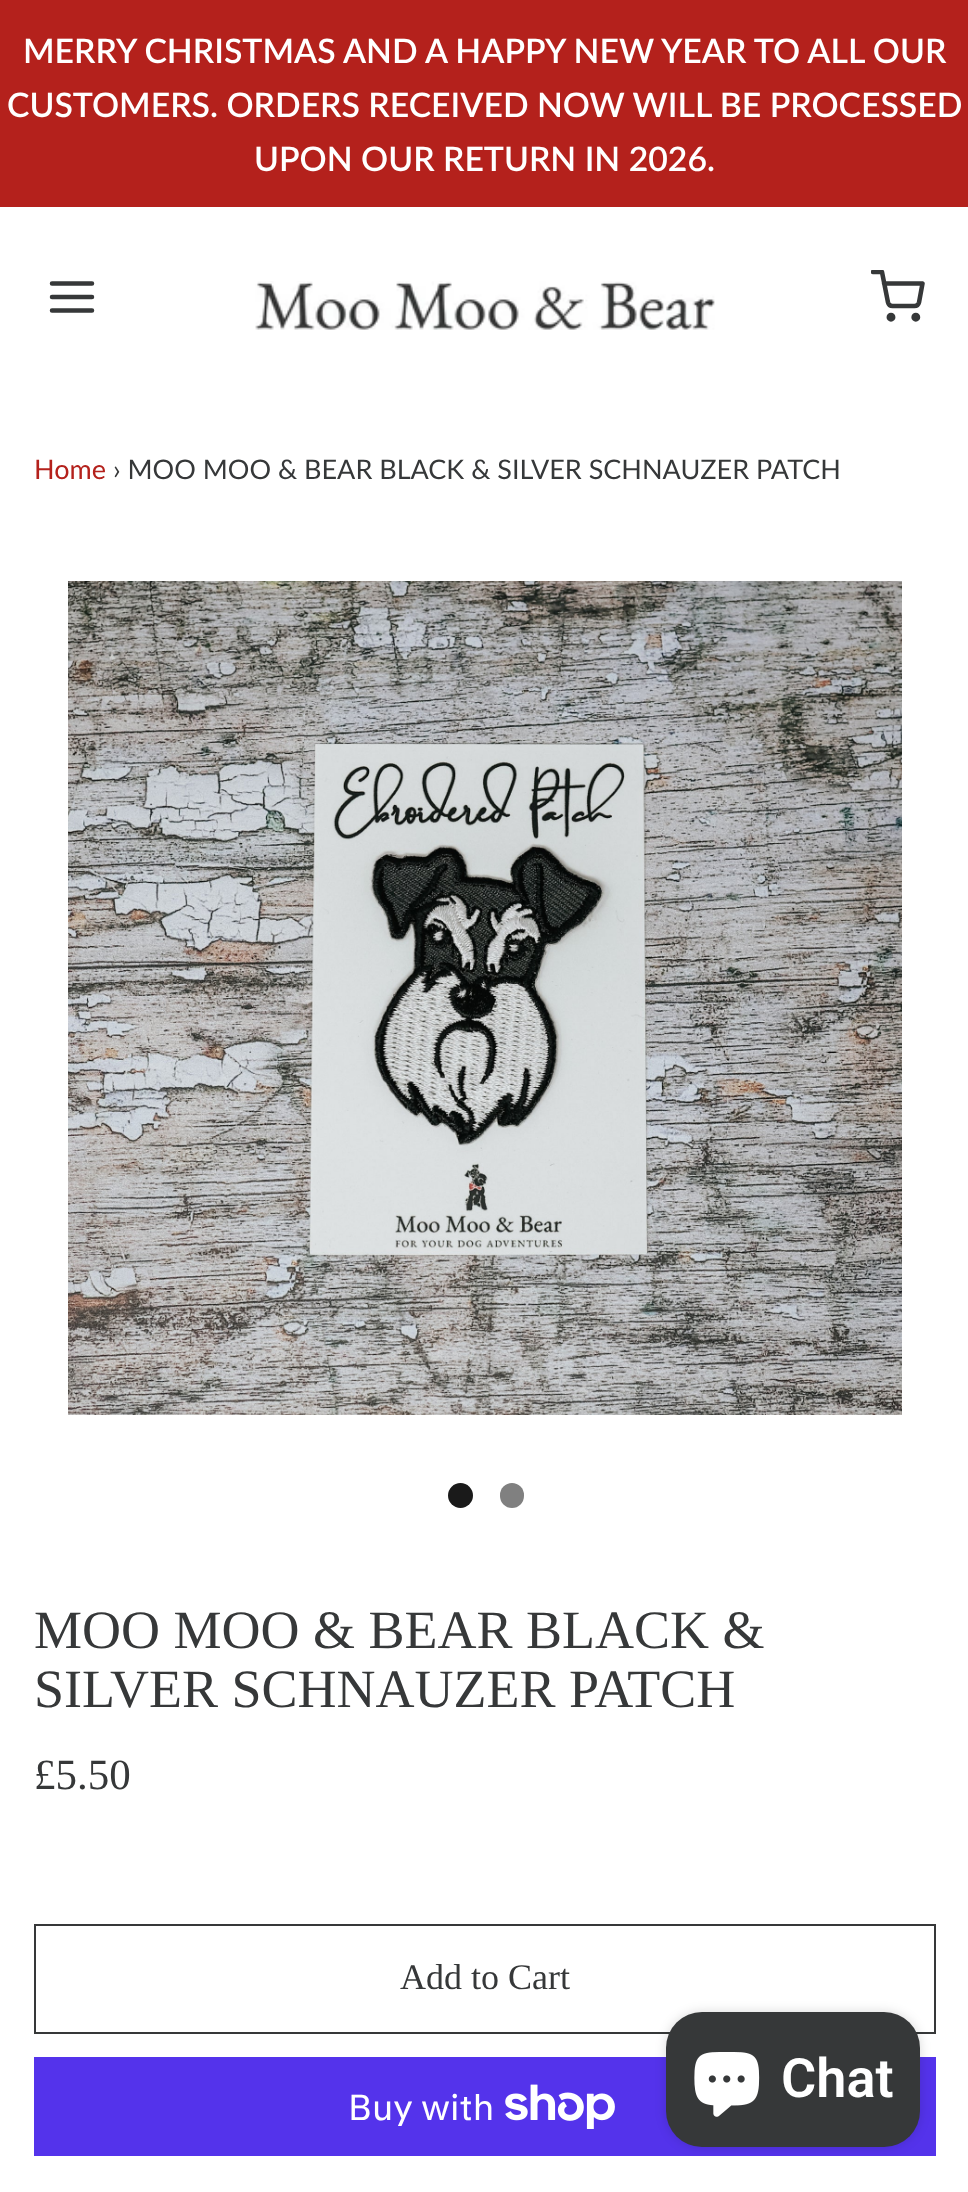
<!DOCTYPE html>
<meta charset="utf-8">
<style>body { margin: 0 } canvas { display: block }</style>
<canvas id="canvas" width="968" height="2192"></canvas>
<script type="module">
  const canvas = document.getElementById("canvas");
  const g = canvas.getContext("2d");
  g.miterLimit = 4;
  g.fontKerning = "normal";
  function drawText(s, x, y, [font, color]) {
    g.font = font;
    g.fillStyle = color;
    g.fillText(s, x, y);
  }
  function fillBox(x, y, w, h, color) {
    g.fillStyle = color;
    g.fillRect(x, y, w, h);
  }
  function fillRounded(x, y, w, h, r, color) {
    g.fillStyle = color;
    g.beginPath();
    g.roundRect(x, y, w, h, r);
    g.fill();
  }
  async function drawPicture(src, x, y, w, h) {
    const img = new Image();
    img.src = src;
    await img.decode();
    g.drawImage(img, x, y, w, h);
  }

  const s1 = ["600 33.75px Lato", "#FFFFFF"];
  const s2 = ["27px Lato", "#B4211C"];
  const s3 = ["27px Lato", "#363839"];
  const s4 = ["54px Liberation Serif", "#363839"];
  const s5 = ["43px Liberation Serif", "#363839"];
  const s6 = ["36px Liberation Serif", "#363839"];
  const s7 = ["36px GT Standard", "#FFFFFF"];
  const s8 = ["600 54px Roboto", "#FFFFFF"];

  fillBox(0, 0, 968, 2192, "#FFFFFF");
  fillBox(0, 0, 968, 207, "#B4211C");
  drawText("MERRY CHRISTMAS AND A HAPPY NEW YEAR TO ALL OUR", 23, 63, s1);
  drawText("CUSTOMERS. ORDERS RECEIVED NOW WILL BE PROCESSED", 7, 117, s1);
  drawText("UPON OUR RETURN IN 2026.", 254, 171, s1);
  g.beginPath();
  g.moveTo(52, 297);
  g.lineTo(92, 297);
  g.moveTo(52, 283.5);
  g.lineTo(92, 283.5);
  g.moveTo(52, 310.5);
  g.lineTo(92, 310.5);
  g.strokeStyle = "#363839";
  g.lineWidth = 4.5;
  g.lineCap = "round";
  g.lineJoin = "round";
  g.stroke();
  await drawPicture("pic1.png", 255, 281, 460, 49);
  g.save();
  g.beginPath();
  g.rect(871, 270, 54, 54);
  g.clip();
  g.beginPath();
  g.moveTo(873, 272);
  g.lineTo(882, 272);
  g.lineTo(888, 302.5);
  g.bezierCurveTo(888.5, 304.5, 890.5, 306, 892.5, 306);
  g.lineTo(914.5, 306);
  g.bezierCurveTo(916.5, 306, 918.5, 304.5, 919, 302.5);
  g.lineTo(922.5, 283.5);
  g.lineTo(884, 283.5);
  g.stroke();
  g.restore();
  g.beginPath();
  g.arc(891, 317.2, 2.2, 0, Math.PI * 2);
  g.stroke();
  g.beginPath();
  g.arc(915.8, 317.2, 2.2, 0, Math.PI * 2);
  g.stroke();
  drawText("Home", 34, 479, s2);
  drawText("› MOO MOO & BEAR BLACK & SILVER SCHNAUZER PATCH", 113, 479, s3);
  await drawPicture("pic2.png", 68, 581, 834, 834);
  g.fillStyle = "#1A1A1A";
  g.beginPath();
  g.arc(460.5, 1495.5, 12.5, 0, Math.PI * 2);
  g.fill();
  fillRounded(500, 1483, 24, 25, 12, "#808080");
  drawText("MOO MOO & BEAR BLACK &", 34, 1648, s4);
  drawText("SILVER SCHNAUZER PATCH", 34, 1707, s4);
  drawText("£5.50", 34, 1789, s5);
  g.lineWidth = 2;
  g.lineJoin = "miter";
  g.strokeRect(35, 1925, 900, 108);
  drawText("Add to Cart", 400, 1989, s6);
  fillBox(34, 2057, 902, 99, "#5433EB");
  drawText("Buy with", 348, 2120, s7);
  await drawPicture("pic3.png", 505, 2084, 110, 45);
  g.fillStyle = "rgba(0, 0, 0, 0.15)";
  g.filter = "blur(5.5px)";
  g.beginPath();
  g.roundRect(666, 2012, 254, 135, 36);
  g.fill();
  g.filter = "none";
  fillRounded(666, 2012, 254, 135, 36, "#363839");
  await drawPicture("pic4.png", 694, 2052, 66, 65);
  drawText("Chat", 781, 2097, s8);
</script>
